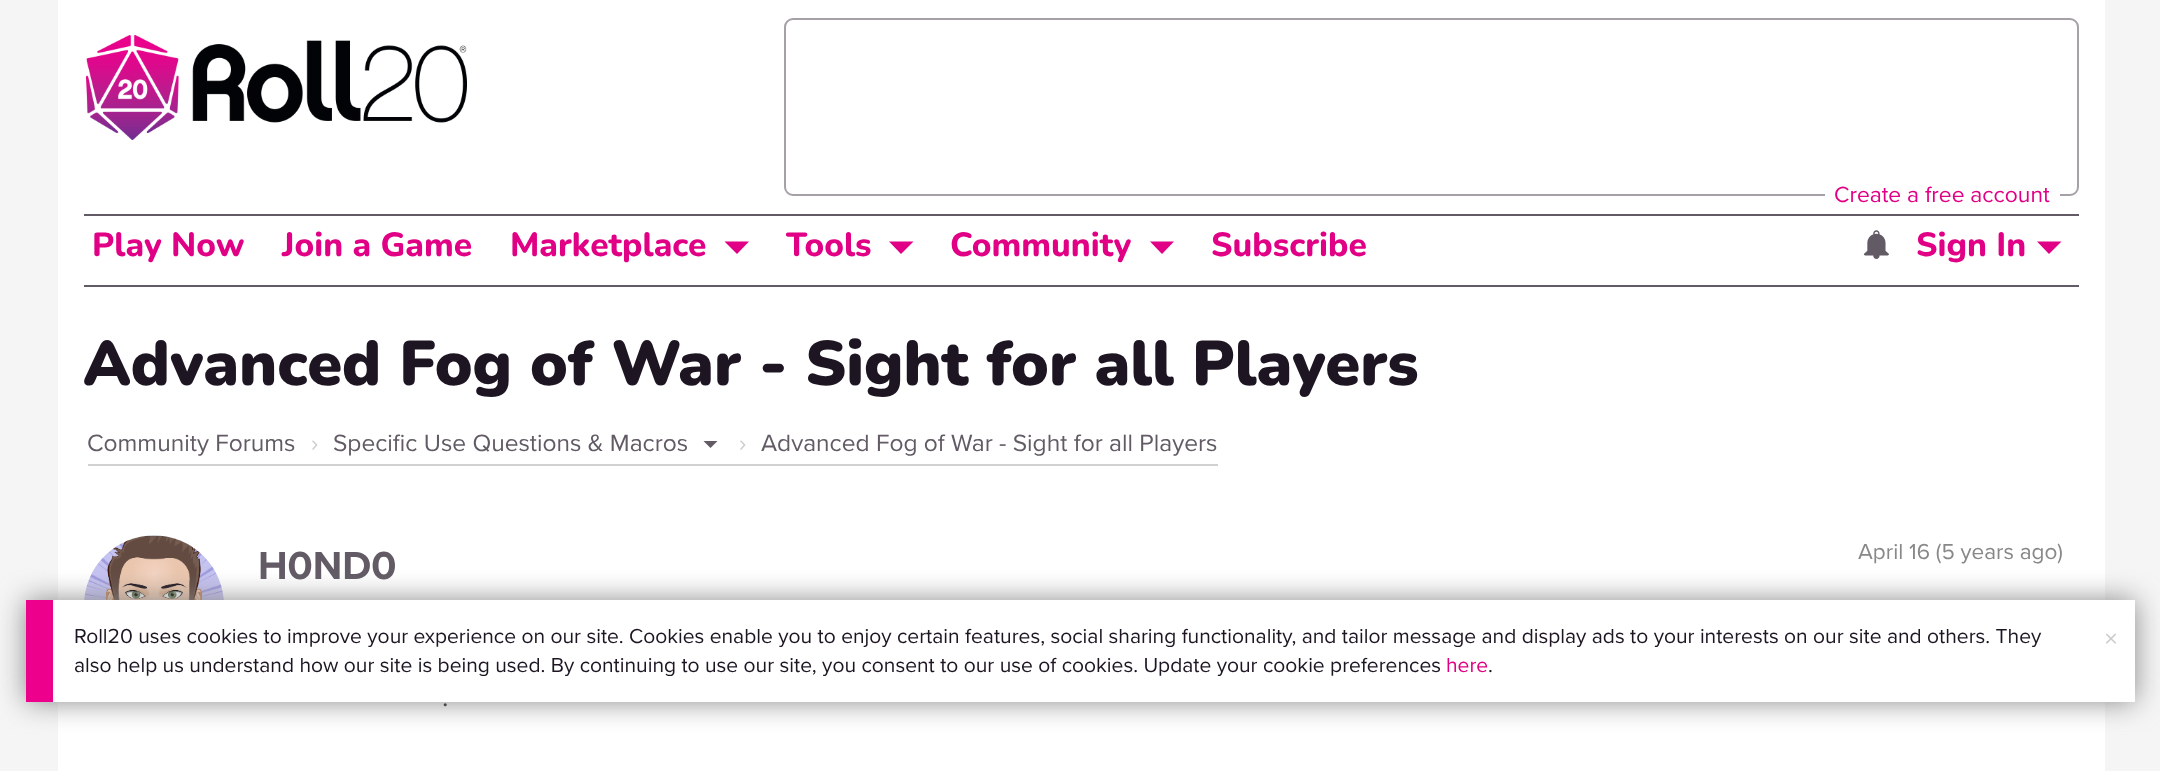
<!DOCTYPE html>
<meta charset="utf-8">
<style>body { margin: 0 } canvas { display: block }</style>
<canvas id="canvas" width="2160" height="771"></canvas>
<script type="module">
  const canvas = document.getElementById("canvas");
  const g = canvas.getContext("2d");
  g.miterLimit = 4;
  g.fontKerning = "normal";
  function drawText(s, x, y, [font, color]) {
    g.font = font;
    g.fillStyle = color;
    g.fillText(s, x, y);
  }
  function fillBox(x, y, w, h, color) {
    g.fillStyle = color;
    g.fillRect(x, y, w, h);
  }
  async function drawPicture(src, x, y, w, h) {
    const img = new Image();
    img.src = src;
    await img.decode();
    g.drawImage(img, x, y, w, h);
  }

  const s1 = ["22.75px Proxima Nova", "#E10085"];
  const s2 = ["800 33.5px Nunito", "#E10085"];
  const s3 = ["33.5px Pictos", "#625B65"];
  const s4 = ["900 63px Nunito", "#1E1523"];
  const s5 = ["24.5px Proxima Nova", "#625B65"];
  const s6 = ["24.5px Proxima Nova", "#CCCCCC"];
  const s7 = ["bold 40.5px Proxima Nova", "#625B65"];
  const s8 = ["22.5px Proxima Nova", "#888888"];
  const s9 = ["28px Proxima Nova", "#1E1523"];
  const s10 = ["21px Proxima Nova", "#1E1523"];
  const s11 = ["21px Proxima Nova", "#E10085"];
  const s12 = ["28px Proxima Nova", "#CCCCCC"];

  fillBox(0, 0, 2160, 771, "#F5F5F5");
  fillBox(58, 0, 2047, 771, "#FFFFFF");
  await drawPicture("pic1.png", 86, 35, 381, 105);
  g.beginPath();
  g.roundRect(785, 19, 1293, 176, 8);
  g.strokeStyle = "#A5A1A7";
  g.lineWidth = 2;
  g.stroke();
  fillBox(1825, 194, 235, 2, "#FFFFFF");
  drawText("Create a free account", 1834, 202, s1);
  fillBox(84, 214, 1995, 2, "#625B65");
  fillBox(84, 285, 1995, 2, "#625B65");
  drawText("Play Now", 92, 256, s2);
  drawText("Join a Game", 282, 256, s2);
  drawText("Marketplace", 510, 256, s2);
  g.beginPath();
  g.moveTo(724.5, 241.5);
  g.lineTo(749, 241.5);
  g.lineTo(737, 254);
  g.closePath();
  g.fill();
  drawText("Tools", 786, 256, s2);
  g.beginPath();
  g.moveTo(889, 241.5);
  g.lineTo(913.5, 241.5);
  g.lineTo(901, 254);
  g.closePath();
  g.fill();
  drawText("Community", 950, 256, s2);
  g.beginPath();
  g.moveTo(1150, 241.5);
  g.lineTo(1174, 241.5);
  g.lineTo(1162, 254);
  g.closePath();
  g.fill();
  drawText("Subscribe", 1211, 256, s2);
  drawText(":", 1863, 254, s3);
  drawText("Sign In", 1916, 256, s2);
  g.beginPath();
  g.moveTo(2037, 241.5);
  g.lineTo(2061.5, 241.5);
  g.lineTo(2049, 254);
  g.closePath();
  g.fill();
  drawText("Advanced Fog of War - Sight for all Players", 83, 385, s4);
  fillBox(88, 464, 1130, 2, "#D1D1D1");
  drawText("Community Forums", 87, 451, s5);
  drawText("›", 311, 451, s6);
  drawText("Specific Use Questions & Macros", 333, 451, s5);
  g.beginPath();
  g.moveTo(703.5, 441);
  g.lineTo(717.5, 441);
  g.lineTo(710.5, 448);
  g.closePath();
  g.fill();
  drawText("›", 739, 451, s6);
  drawText("Advanced Fog of War - Sight for all Players", 761, 451, s5);
  await drawPicture("pic2.png", 84, 535, 140, 65);
  drawText("H0ND0", 258, 579, s7);
  drawText("April 16 (5 years ago)", 1858, 559, s8);
  drawText(".", 442, 706, s9);
  g.fillStyle = "#888888";
  g.filter = "blur(14px)";
  g.beginPath();
  g.rect(26, 600, 2109, 102);
  g.fill();
  g.filter = "none";
  fillBox(53, 600, 2082, 102, "#FFFFFF");
  fillBox(26, 600, 27, 102, "#EC008C");
  drawText("Roll20 uses cookies to improve your experience on our site. Cookies enable you to enjoy certain features, social sharing functionality, and tailor message and display ads to your interests on our site and others. They", 74, 643, s10);
  drawText("also help us understand how our site is being used. By continuing to use our site, you consent to our use of cookies. Update your cookie preferences", 74, 672, s10);
  drawText("here", 1446, 672, s11);
  drawText(".", 1488, 672, s10);
  drawText("×", 2104, 648, s12);
</script>
